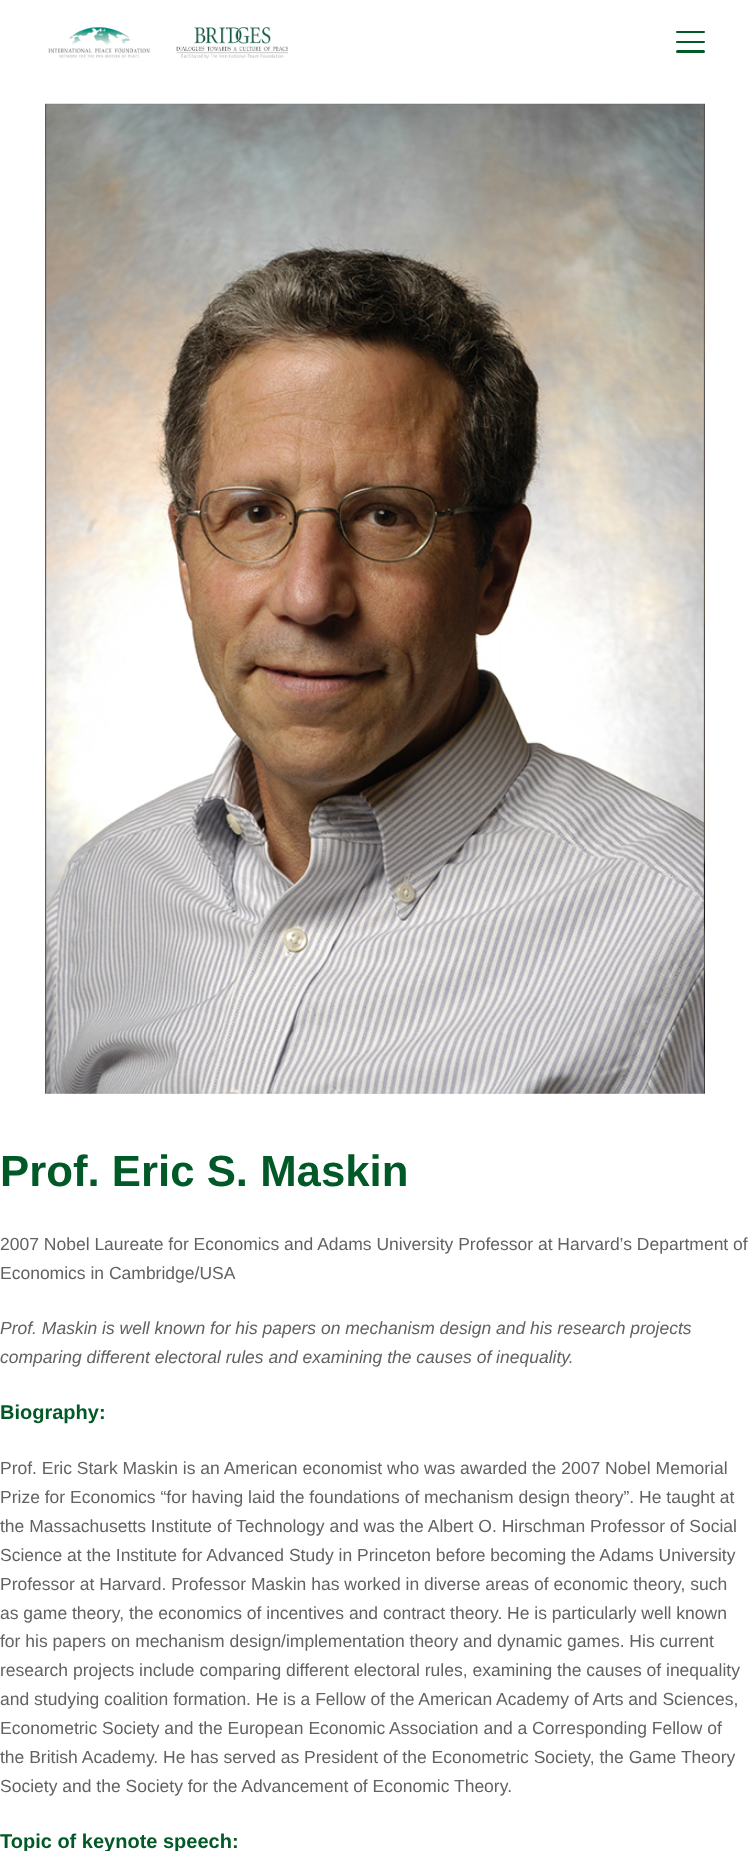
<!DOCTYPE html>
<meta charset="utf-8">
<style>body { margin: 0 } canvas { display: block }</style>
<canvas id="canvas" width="749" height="1851"></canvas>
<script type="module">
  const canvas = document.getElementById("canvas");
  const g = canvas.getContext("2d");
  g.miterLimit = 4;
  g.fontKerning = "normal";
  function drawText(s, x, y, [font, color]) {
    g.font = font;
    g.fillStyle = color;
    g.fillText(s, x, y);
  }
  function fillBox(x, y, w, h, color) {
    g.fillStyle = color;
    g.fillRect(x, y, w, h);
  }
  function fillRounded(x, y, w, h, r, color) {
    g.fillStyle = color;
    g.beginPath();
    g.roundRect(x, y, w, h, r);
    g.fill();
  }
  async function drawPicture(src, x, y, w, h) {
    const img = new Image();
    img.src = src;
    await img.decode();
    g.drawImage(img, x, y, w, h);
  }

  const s1 = ["bold 43.75px Liberation Sans", "#005926"];
  const s2 = ["17.5px Liberation Sans", "#626262"];
  const s3 = ["italic 17.5px Liberation Sans", "#626262"];
  const s4 = ["bold 20px Liberation Sans", "#005926"];

  fillBox(0, 0, 749, 1851, "#FFFFFF");
  await drawPicture("pic1.png", 48, 27, 240, 32);
  fillRounded(676, 31, 29, 2, 1, "#005926");
  fillRounded(676, 41, 29, 2, 1, "#005926");
  fillRounded(676, 50, 29, 3, 1.5, "#005926");
  await drawPicture("pic2.png", 45, 103, 660, 991);
  drawText("Prof. Eric S. Maskin", 0, 1186, s1);
  drawText("2007 Nobel Laureate for Economics and Adams University Professor at Harvard’s Department of", 0, 1250, s2);
  drawText("Economics in Cambridge/USA", 0, 1279, s2);
  drawText("Prof. Maskin is well known for his papers on mechanism design and his research projects", 0, 1334, s3);
  drawText("comparing different electoral rules and examining the causes of inequality.", 0, 1363, s3);
  drawText("Biography:", 0, 1419, s4);
  drawText("Prof. Eric Stark Maskin is an American economist who was awarded the 2007 Nobel Memorial", 0, 1474, s2);
  drawText("Prize for Economics “for having laid the foundations of mechanism design theory”. He taught at", 0, 1503, s2);
  drawText("the Massachusetts Institute of Technology and was the Albert O. Hirschman Professor of Social", 0, 1532, s2);
  drawText("Science at the Institute for Advanced Study in Princeton before becoming the Adams University", 0, 1561, s2);
  drawText("Professor at Harvard. Professor Maskin has worked in diverse areas of economic theory, such", 0, 1590, s2);
  drawText("as game theory, the economics of incentives and contract theory. He is particularly well known", 0, 1619, s2);
  drawText("for his papers on mechanism design/implementation theory and dynamic games. His current", 0, 1647, s2);
  drawText("research projects include comparing different electoral rules, examining the causes of inequality", 0, 1676, s2);
  drawText("and studying coalition formation. He is a Fellow of the American Academy of Arts and Sciences,", 0, 1705, s2);
  drawText("Econometric Society and the European Economic Association and a Corresponding Fellow of", 0, 1734, s2);
  drawText("the British Academy. He has served as President of the Econometric Society, the Game Theory", 0, 1763, s2);
  drawText("Society and the Society for the Advancement of Economic Theory.", 0, 1792, s2);
  drawText("Topic of keynote speech:", 0, 1848, s4);
</script>
